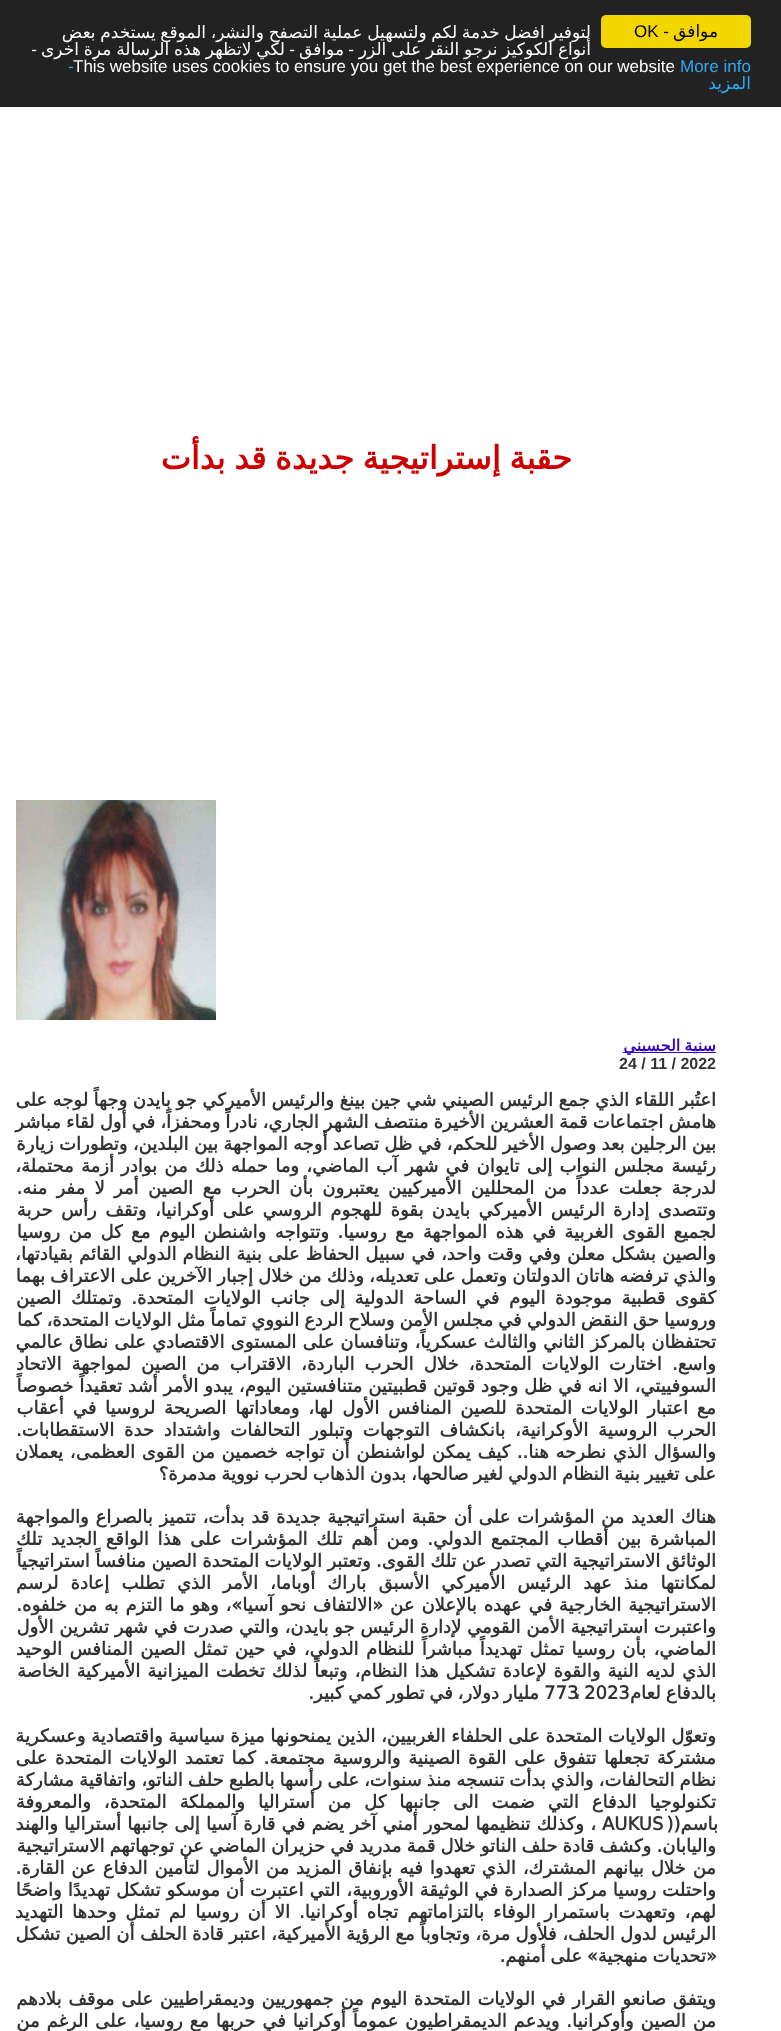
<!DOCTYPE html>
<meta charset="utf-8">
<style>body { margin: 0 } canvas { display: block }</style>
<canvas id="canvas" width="781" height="2031"></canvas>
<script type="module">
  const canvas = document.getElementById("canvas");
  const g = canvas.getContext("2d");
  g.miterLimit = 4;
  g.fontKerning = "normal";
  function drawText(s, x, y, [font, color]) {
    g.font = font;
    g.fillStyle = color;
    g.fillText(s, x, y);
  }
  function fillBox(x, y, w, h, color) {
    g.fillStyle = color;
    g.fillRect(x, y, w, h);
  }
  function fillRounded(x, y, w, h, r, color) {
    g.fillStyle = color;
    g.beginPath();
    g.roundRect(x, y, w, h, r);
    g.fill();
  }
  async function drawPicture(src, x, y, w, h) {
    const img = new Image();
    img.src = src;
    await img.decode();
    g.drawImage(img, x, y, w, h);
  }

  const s1 = ["17px DejaVu Sans", "#000000"];
  const s2 = ["17px Liberation Sans", "#000000"];
  const s3 = ["17px DejaVu Sans", "#FFFFFF"];
  const s4 = ["17px Liberation Sans", "#FFFFFF"];
  const s5 = ["17px Liberation Sans", "#31A8F0"];
  const s6 = ["17px DejaVu Sans", "#31A8F0"];
  const s7 = ["bold 32px DejaVu Sans", "#CC0000"];
  const s8 = ["bold 16px DejaVu Sans", "#3300CC"];
  const s9 = ["bold 16px Liberation Sans", "#333333"];
  const s10 = ["bold 18px DejaVu Sans", "#333333"];

  fillBox(0, 0, 781, 2031, "#FFFFFF");
  fillBox(0, 0, 781, 107, "#222222");
  fillRounded(601, 15, 150, 33, 5, "#F1D600");
  g.direction = "rtl";
  drawText("موافق", 718, 37, s1);
  drawText("-", 669, 37, s2);
  g.direction = "ltr";
  drawText("OK", 634, 37, s2);
  g.wordSpacing = "-0.75px";
  g.direction = "rtl";
  drawText("لتوفير افضل خدمة لكم ولتسهيل عملية التصفح والنشر، الموقع يستخدم بعض", 591, 38, s3);
  g.wordSpacing = "-0.5px";
  drawText("أنواع الكوكيز نرجو النقر على الزر", 591, 55, s3);
  g.wordSpacing = "0px";
  drawText("-", 354, 55, s4);
  drawText("موافق", 344, 55, s3);
  drawText("-", 295, 55, s4);
  g.wordSpacing = "-0.5px";
  drawText("لكي لاتظهر هذه الرسالة مرة اخرى", 285, 55, s3);
  g.wordSpacing = "0px";
  drawText("-", 37, 55, s4);
  g.direction = "ltr";
  drawText("More info", 680, 72, s5);
  drawText("This website uses cookies to ensure you get the best experience on our website", 73, 72, s4);
  drawText("-", 68, 72, s5);
  g.direction = "rtl";
  drawText("المزيد", 751, 89, s6);
  g.wordSpacing = "-1.5px";
  drawText("حقبة إستراتيجية جديدة قد بدأت", 572, 469, s7);
  await drawPicture("pic1.png", 16, 800, 200, 220);
  fillBox(623, 1052, 93, 1, "#3300CC");
  g.wordSpacing = "-1px";
  drawText("سنية الحسيني", 716, 1051, s8);
  g.wordSpacing = "0px";
  g.direction = "ltr";
  drawText("24 / 11 / 2022", 619, 1069, s9);
  g.wordSpacing = "-0.25px";
  g.direction = "rtl";
  drawText("اعتُبر اللقاء الذي جمع الرئيس الصيني شي جين بينغ والرئيس الأميركي جو بايدن وجهاً لوجه على", 716, 1106, s10);
  g.wordSpacing = "-0.6px";
  drawText("هامش اجتماعات قمة العشرين الأخيرة منتصف الشهر الجاري، نادراً ومحفزاً، في أول لقاء مباشر", 716, 1128, s10);
  g.wordSpacing = "-0.4px";
  drawText("بين الرجلين بعد وصول الأخير للحكم، في ظل تصاعد أوجه المواجهة بين البلدين، وتطورات زيارة", 716, 1150, s10);
  g.wordSpacing = "1.5px";
  drawText("رئيسة مجلس النواب إلى تايوان في شهر آب الماضي، وما حمله ذلك من بوادر أزمة محتملة،", 716, 1172, s10);
  g.wordSpacing = "3.6px";
  drawText("لدرجة جعلت عدداً من المحللين الأميركيين يعتبرون بأن الحرب مع الصين أمر لا مفر منه.", 716, 1194, s10);
  g.wordSpacing = "2.75px";
  drawText("وتتصدى إدارة الرئيس الأميركي بايدن بقوة للهجوم الروسي على أوكرانيا، وتقف رأس حربة", 716, 1216, s10);
  drawText("لجميع القوى الغربية في هذه المواجهة مع روسيا. وتتواجه واشنطن اليوم مع كل من روسيا", 716, 1238, s10);
  g.wordSpacing = "0.5px";
  drawText("والصين بشكل معلن وفي وقت واحد، في سبيل الحفاظ على بنية النظام الدولي القائم بقيادتها،", 716, 1260, s10);
  g.wordSpacing = "-0.6px";
  drawText("والذي ترفضه هاتان الدولتان وتعمل على تعديله، وذلك من خلال إجبار الآخرين على الاعتراف بهما", 716, 1282, s10);
  g.wordSpacing = "3.9px";
  drawText("كقوى قطبية موجودة اليوم في الساحة الدولية إلى جانب الولايات المتحدة. وتمتلك الصين", 716, 1304, s10);
  g.wordSpacing = "-0.75px";
  drawText("وروسيا حق النقض الدولي في مجلس الأمن وسلاح الردع النووي تماماً مثل الولايات المتحدة، كما", 716, 1326, s10);
  g.wordSpacing = "0.4px";
  drawText("تحتفظان بالمركز الثاني والثالث عسكرياً، وتنافسان على المستوى الاقتصادي على نطاق عالمي", 716, 1348, s10);
  g.wordSpacing = "4.4px";
  drawText("واسع. اختارت الولايات المتحدة، خلال الحرب الباردة، الاقتراب من الصين لمواجهة الاتحاد", 716, 1370, s10);
  g.wordSpacing = "0.25px";
  drawText("السوفييتي، الا انه في ظل وجود قوتين قطبيتين متنافستين اليوم، يبدو الأمر أشد تعقيداً خصوصاً", 716, 1392, s10);
  g.wordSpacing = "3.1px";
  drawText("مع اعتبار الولايات المتحدة للصين المنافس الأول لها، ومعاداتها الصريحة لروسيا في أعقاب", 716, 1414, s10);
  g.wordSpacing = "4px";
  drawText("الحرب الروسية الأوكرانية، بانكشاف التوجهات وتبلور التحالفات واشتداد حدة الاستقطابات.", 716, 1436, s10);
  g.wordSpacing = "1px";
  drawText("والسؤال الذي نطرحه هنا.. كيف يمكن لواشنطن أن تواجه خصمين من القوى العظمى، يعملان", 716, 1458, s10);
  g.wordSpacing = "-0.75px";
  drawText("على تغيير بنية النظام الدولي لغير صالحها، بدون الذهاب لحرب نووية مدمرة؟", 716, 1480, s10);
  g.wordSpacing = "1px";
  drawText("هناك العديد من المؤشرات على أن حقبة استراتيجية جديدة قد بدأت، تتميز بالصراع والمواجهة", 716, 1523, s10);
  g.wordSpacing = "3px";
  drawText("المباشرة بين أقطاب المجتمع الدولي. ومن أهم تلك المؤشرات على هذا الواقع الجديد تلك", 716, 1545, s10);
  g.wordSpacing = "-0.25px";
  drawText("الوثائق الاستراتيجية التي تصدر عن تلك القوى. وتعتبر الولايات المتحدة الصين منافساً استراتيجياً", 716, 1567, s10);
  g.wordSpacing = "6.4px";
  drawText("لمكانتها منذ عهد الرئيس الأميركي الأسبق باراك أوباما، الأمر الذي تطلب إعادة لرسم", 716, 1589, s10);
  g.wordSpacing = "1.1px";
  drawText("الاستراتيجية الخارجية في عهده بالإعلان عن «الالتفاف نحو آسيا»، وهو ما التزم به من خلفوه.", 716, 1611, s10);
  g.wordSpacing = "0px";
  drawText("واعتبرت استراتيجية الأمن القومي لإدارة الرئيس جو بايدن، والتي صدرت في شهر تشرين الأول", 716, 1633, s10);
  g.wordSpacing = "1.75px";
  drawText("الماضي، بأن روسيا تمثل تهديداً مباشراً للنظام الدولي، في حين تمثل الصين المنافس الوحيد", 716, 1655, s10);
  g.wordSpacing = "1.25px";
  drawText("الذي لديه النية والقوة لإعادة تشكيل هذا النظام، وتبعاً لذلك تخطت الميزانية الأميركية الخاصة", 716, 1677, s10);
  g.wordSpacing = "-0.75px";
  drawText("بالدفاع لعام", 716, 1699, s10);
  g.wordSpacing = "0px";
  g.direction = "ltr";
  drawText("2023", 584, 1699, s10);
  drawText("773", 544, 1699, s10);
  g.wordSpacing = "-1px";
  g.direction = "rtl";
  drawText("مليار دولار، في تطور كمي كبير.", 539, 1699, s10);
  g.wordSpacing = "0px";
  g.direction = "ltr";
  drawText("،", 574, 1699, s10);
  g.direction = "rtl";
  drawText("وتعوّل الولايات المتحدة على الحلفاء الغربيين، الذين يمنحونها ميزة سياسية واقتصادية وعسكرية", 716, 1742, s10);
  g.wordSpacing = "2px";
  drawText("مشتركة تجعلها تتفوق على القوة الصينية والروسية مجتمعة. كما تعتمد الولايات المتحدة على", 716, 1764, s10);
  g.wordSpacing = "-0.6px";
  drawText("نظام التحالفات، والذي بدأت تنسجه منذ سنوات، على رأسها بالطبع حلف الناتو، واتفاقية مشاركة", 716, 1786, s10);
  g.wordSpacing = "7.25px";
  drawText("تكنولوجيا الدفاع التي ضمت الى جانبها كل من أستراليا والمملكة المتحدة، والمعروفة", 716, 1808, s10);
  g.wordSpacing = "0px";
  drawText("باسم((", 718, 1830, s10);
  g.direction = "ltr";
  drawText("AUKUS", 602, 1830, s10);
  g.wordSpacing = "0.5px";
  g.direction = "rtl";
  drawText("، وكذلك تنظيمها لمحور أمني آخر يضم في قارة آسيا إلى جانبها أستراليا والهند", 596, 1830, s10);
  g.wordSpacing = "-0.5px";
  drawText("واليابان. وكشف قادة حلف الناتو خلال قمة مدريد في حزيران الماضي عن توجهاتهم الاستراتيجية", 716, 1852, s10);
  g.wordSpacing = "1.2px";
  drawText("من خلال بيانهم المشترك، الذي تعهدوا فيه بإنفاق المزيد من الأموال لتأمين الدفاع عن القارة.", 716, 1874, s10);
  g.wordSpacing = "0.25px";
  drawText("واحتلت روسيا مركز الصدارة في الوثيقة الأوروبية، التي اعتبرت أن موسكو تشكل تهديدًا واضحًا", 716, 1896, s10);
  g.wordSpacing = "3.25px";
  drawText("لهم، وتعهدت باستمرار الوفاء بالتزاماتهم تجاه أوكرانيا. الا أن روسيا لم تمثل وحدها التهديد", 716, 1918, s10);
  g.wordSpacing = "-0.3px";
  drawText("الرئيس لدول الحلف، فلأول مرة، وتجاوباً مع الرؤية الأميركية، اعتبر قادة الحلف أن الصين تشكل", 716, 1940, s10);
  g.wordSpacing = "-1px";
  drawText("«تحديات منهجية» على أمنهم.", 717, 1962, s10);
  g.wordSpacing = "1.1px";
  drawText("ويتفق صانعو القرار في الولايات المتحدة اليوم من جمهوريين وديمقراطيين على موقف بلادهم", 716, 2005, s10);
  drawText("من الصين وأوكرانيا. ويدعم الديمقراطيون عموماً أوكرانيا في حربها مع روسيا، على الرغم من", 716, 2027, s10);
</script>
